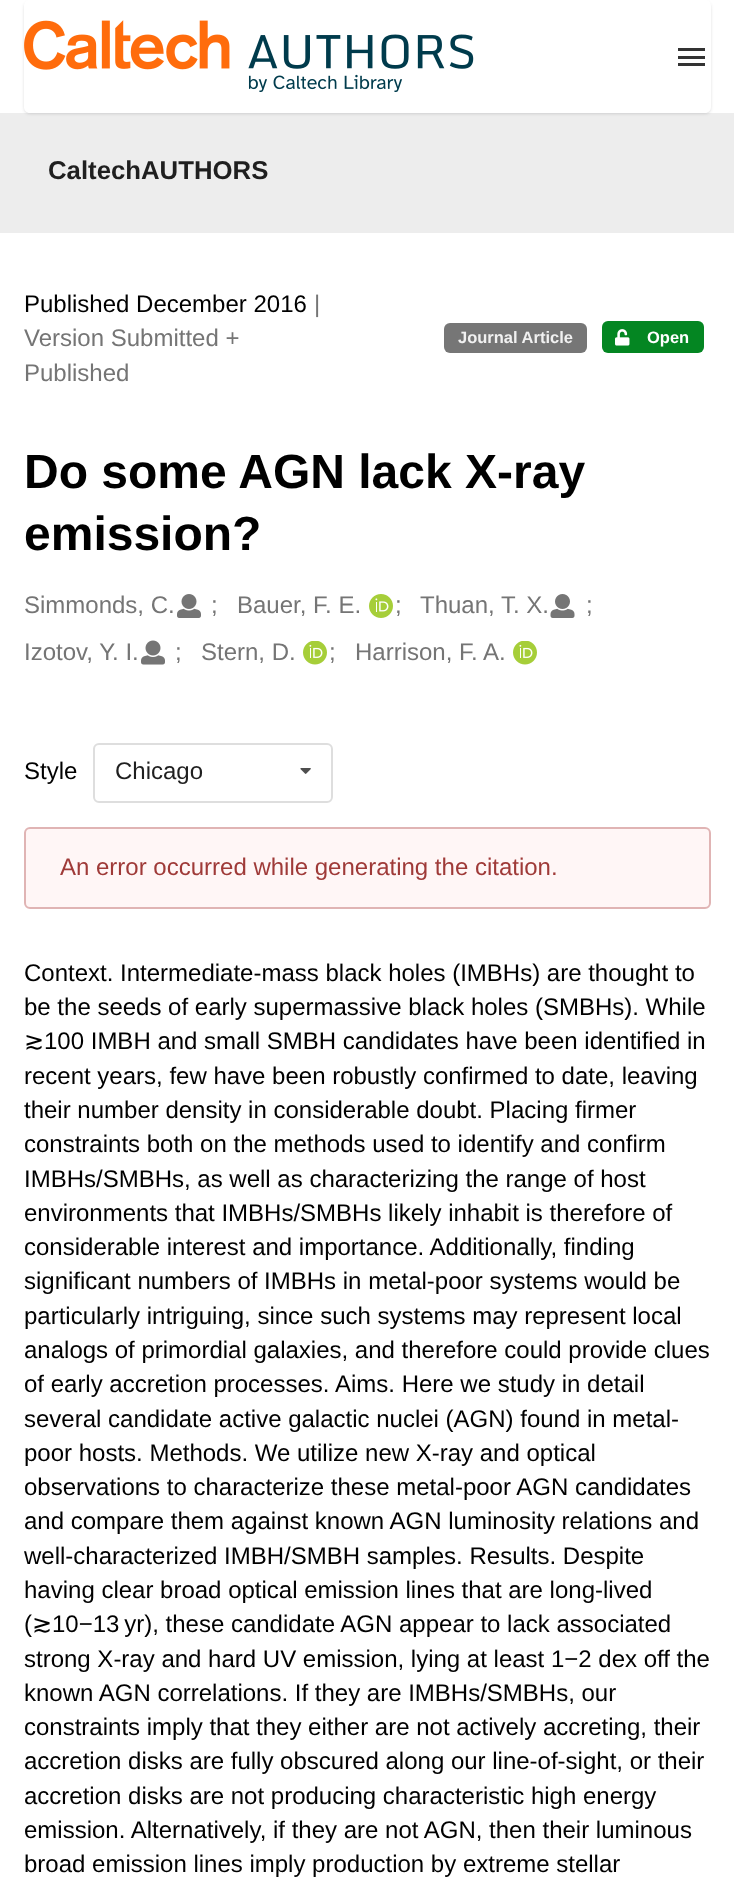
<!DOCTYPE html>
<meta charset="utf-8">
<style>body { margin: 0 } canvas { display: block }</style>
<canvas id="canvas" width="734" height="1879"></canvas>
<script type="module">
  const canvas = document.getElementById("canvas");
  const g = canvas.getContext("2d");
  g.miterLimit = 4;
  g.fontKerning = "normal";
  function drawText(s, x, y, [font, color]) {
    g.font = font;
    g.fillStyle = color;
    g.fillText(s, x, y);
  }
  function fillBox(x, y, w, h, color) {
    g.fillStyle = color;
    g.fillRect(x, y, w, h);
  }
  function fillRounded(x, y, w, h, r, color) {
    g.fillStyle = color;
    g.beginPath();
    g.roundRect(x, y, w, h, r);
    g.fill();
  }
  async function drawPicture(src, x, y, w, h) {
    const img = new Image();
    img.src = src;
    await img.decode();
    g.drawImage(img, x, y, w, h);
  }

  const s1 = ["bold 25.75px Liberation Sans", "#1F1F1F"];
  const s2 = ["24px Liberation Sans", "#000000"];
  const s3 = ["24px Liberation Sans", "#757575"];
  const s4 = ["bold 16.5px Liberation Sans", "#F1F1F1"];
  const s5 = ["bold 16.5px Liberation Sans", "#FFFFFF"];
  const s6 = ["bold 48px Liberation Sans", "#000000"];
  const s7 = ["24px Liberation Sans", "#1F1F1F"];
  const s8 = ["24px Liberation Sans", "#9F3A38"];
  const s9 = ["24px DejaVu Sans", "#000000"];

  fillBox(0, 0, 734, 1879, "#FFFFFF");
  fillBox(0, 113, 734, 120, "#EDEDED");
  g.save();
  g.beginPath();
  g.moveTo(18, 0);
  g.lineTo(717, 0);
  g.lineTo(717, 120);
  g.lineTo(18, 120);
  g.closePath();
  g.moveTo(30, 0);
  g.lineTo(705, 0);
  g.bezierCurveTo(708.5, 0, 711, 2.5, 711, 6);
  g.lineTo(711, 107);
  g.bezierCurveTo(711, 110.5, 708.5, 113, 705, 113);
  g.lineTo(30, 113);
  g.bezierCurveTo(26.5, 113, 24, 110.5, 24, 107);
  g.lineTo(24, 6);
  g.bezierCurveTo(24, 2.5, 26.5, 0, 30, 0);
  g.closePath();
  g.clip("evenodd");
  g.fillStyle = "rgba(34, 36, 38, 0.15)";
  g.filter = "blur(1.5px)";
  g.beginPath();
  g.roundRect(24, 2, 687, 112, 6);
  g.fill();
  g.filter = "none";
  g.restore();
  await drawPicture("pic1.png", 24, 20, 450, 72);
  fillBox(678, 56, 27, 3, "#333333");
  fillBox(678, 48, 27, 3, "#333333");
  fillBox(678, 63, 27, 3, "#333333");
  drawText("CaltechAUTHORS", 48, 179, s1);
  drawText("Published December 2016", 24, 312, s2);
  drawText("|", 314, 312, s3);
  drawText("Version Submitted +", 24, 346, s3);
  drawText("Published", 24, 381, s3);
  fillRounded(444, 323, 143, 30, 6, "#767676");
  drawText("Journal Article", 458, 343, s4);
  fillRounded(602, 321, 102, 32, 6, "#048622");
  await drawPicture("pic2.png", 615, 329, 15, 17);
  drawText("Open", 647, 343, s5);
  drawText("Do some AGN lack X-ray", 24, 488, s6);
  drawText("emission?", 24, 550, s6);
  drawText("Simmonds, C.", 24, 613, s3);
  await drawPicture("pic3.png", 177, 594, 24, 24);
  drawText(";", 211, 613, s3);
  drawText("Bauer, F. E.", 237, 613, s3);
  await drawPicture("pic4.png", 369, 594, 24, 24);
  drawText(";", 395, 613, s3);
  drawText("Thuan, T. X.", 420, 613, s3);
  await drawPicture("pic5.png", 550, 594, 25, 24);
  drawText(";", 586, 613, s3);
  drawText("Izotov, Y. I.", 24, 660, s3);
  await drawPicture("pic6.png", 141, 640, 24, 25);
  drawText(";", 175, 660, s3);
  drawText("Stern, D.", 201, 660, s3);
  await drawPicture("pic7.png", 303, 641, 24, 24);
  drawText(";", 329, 660, s3);
  drawText("Harrison, F. A.", 355, 660, s3);
  await drawPicture("pic7.png", 513, 641, 24, 24);
  drawText("Style", 24, 779, s2);
  g.beginPath();
  g.roundRect(94, 744, 238, 58, 5);
  g.strokeStyle = "#DEDEDE";
  g.lineWidth = 2;
  g.stroke();
  drawText("Chicago", 115, 779, s7);
  await drawPicture("pic8.png", 300, 768, 11, 6);
  g.fillStyle = "#FFF6F6";
  g.beginPath();
  g.roundRect(25, 828, 685, 80, 5);
  g.fill();
  g.strokeStyle = "#E0B4B4";
  g.stroke();
  drawText("An error occurred while generating the citation.", 60, 875, s8);
  drawText("Context. Intermediate-mass black holes (IMBHs) are thought to", 24, 981, s2);
  drawText("be the seeds of early supermassive black holes (SMBHs). While", 24, 1015, s2);
  drawText("≳", 24, 1049, s9);
  drawText("100 IMBH and small SMBH candidates have been identified in", 44, 1049, s2);
  drawText("recent years, few have been robustly confirmed to date, leaving", 24, 1084, s2);
  drawText("their number density in considerable doubt. Placing firmer", 24, 1118, s2);
  drawText("constraints both on the methods used to identify and confirm", 24, 1152, s2);
  drawText("IMBHs/SMBHs, as well as characterizing the range of host", 24, 1187, s2);
  drawText("environments that IMBHs/SMBHs likely inhabit is therefore of", 24, 1221, s2);
  drawText("considerable interest and importance. Additionally, finding", 24, 1255, s2);
  drawText("significant numbers of IMBHs in metal-poor systems would be", 24, 1289, s2);
  drawText("particularly intriguing, since such systems may represent local", 24, 1324, s2);
  drawText("analogs of primordial galaxies, and therefore could provide clues", 24, 1358, s2);
  drawText("of early accretion processes.", 24, 1392, s2);
  drawText("Aims. Here we study in detail", 335, 1392, s2);
  drawText("several candidate active galactic nuclei (AGN) found in metal-", 24, 1427, s2);
  drawText("poor hosts. Methods. We utilize new X-ray and optical", 24, 1461, s2);
  drawText("observations to characterize these metal-poor AGN candidates", 24, 1495, s2);
  drawText("and compare them against known AGN luminosity relations and", 24, 1529, s2);
  drawText("well-characterized IMBH/SMBH samples. Results. Despite", 24, 1564, s2);
  drawText("having clear broad optical emission lines that are long-lived", 24, 1598, s2);
  drawText("(", 24, 1632, s2);
  drawText("≳", 32, 1632, s9);
  drawText("10−13 yr), these candidate AGN appear to lack associated", 52, 1632, s2);
  drawText("strong X-ray and hard UV emission, lying at least 1−2 dex off the", 24, 1667, s2);
  drawText("known AGN correlations. If they are IMBHs/SMBHs, our", 24, 1701, s2);
  drawText("constraints imply that they either are not actively accreting, their", 24, 1735, s2);
  drawText("accretion disks are fully obscured along our line-of-sight, or their", 24, 1769, s2);
  drawText("accretion disks are not producing characteristic high energy", 24, 1804, s2);
  drawText("emission. Alternatively, if they are not AGN, then their luminous", 24, 1838, s2);
  drawText("broad emission lines imply production by extreme stellar", 24, 1872, s2);
</script>
